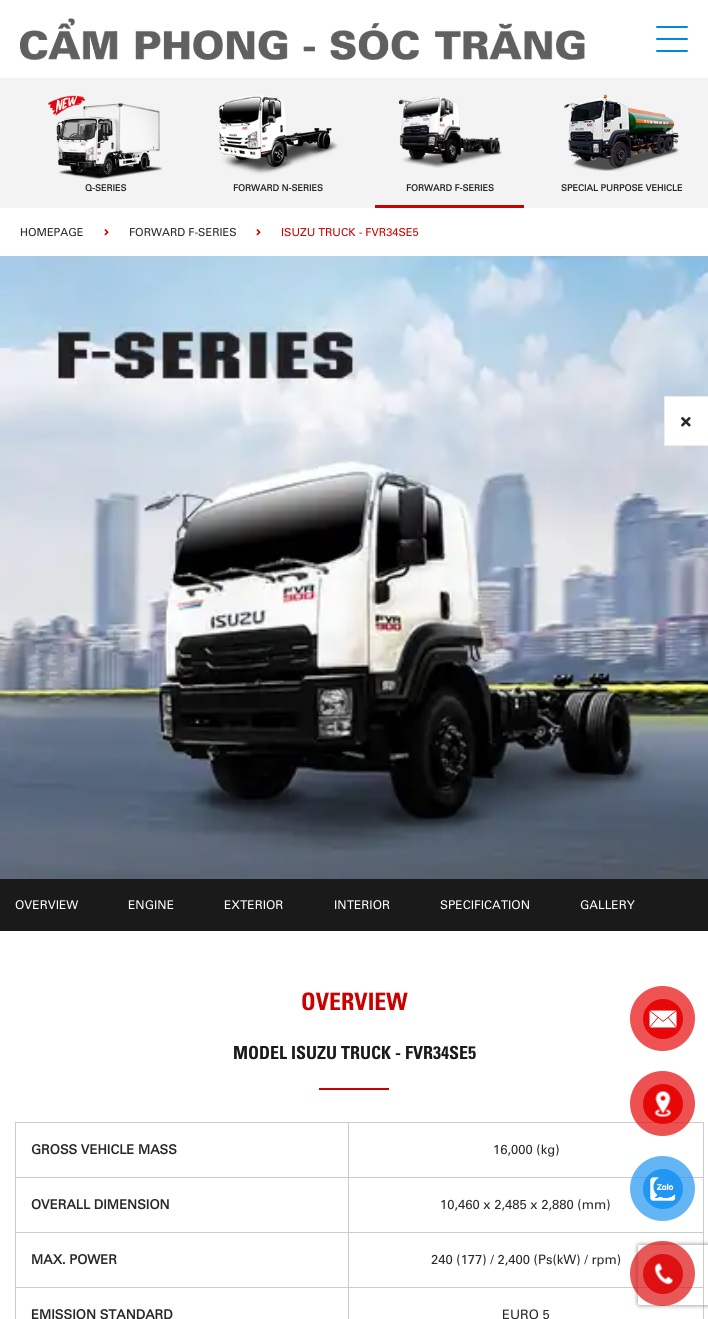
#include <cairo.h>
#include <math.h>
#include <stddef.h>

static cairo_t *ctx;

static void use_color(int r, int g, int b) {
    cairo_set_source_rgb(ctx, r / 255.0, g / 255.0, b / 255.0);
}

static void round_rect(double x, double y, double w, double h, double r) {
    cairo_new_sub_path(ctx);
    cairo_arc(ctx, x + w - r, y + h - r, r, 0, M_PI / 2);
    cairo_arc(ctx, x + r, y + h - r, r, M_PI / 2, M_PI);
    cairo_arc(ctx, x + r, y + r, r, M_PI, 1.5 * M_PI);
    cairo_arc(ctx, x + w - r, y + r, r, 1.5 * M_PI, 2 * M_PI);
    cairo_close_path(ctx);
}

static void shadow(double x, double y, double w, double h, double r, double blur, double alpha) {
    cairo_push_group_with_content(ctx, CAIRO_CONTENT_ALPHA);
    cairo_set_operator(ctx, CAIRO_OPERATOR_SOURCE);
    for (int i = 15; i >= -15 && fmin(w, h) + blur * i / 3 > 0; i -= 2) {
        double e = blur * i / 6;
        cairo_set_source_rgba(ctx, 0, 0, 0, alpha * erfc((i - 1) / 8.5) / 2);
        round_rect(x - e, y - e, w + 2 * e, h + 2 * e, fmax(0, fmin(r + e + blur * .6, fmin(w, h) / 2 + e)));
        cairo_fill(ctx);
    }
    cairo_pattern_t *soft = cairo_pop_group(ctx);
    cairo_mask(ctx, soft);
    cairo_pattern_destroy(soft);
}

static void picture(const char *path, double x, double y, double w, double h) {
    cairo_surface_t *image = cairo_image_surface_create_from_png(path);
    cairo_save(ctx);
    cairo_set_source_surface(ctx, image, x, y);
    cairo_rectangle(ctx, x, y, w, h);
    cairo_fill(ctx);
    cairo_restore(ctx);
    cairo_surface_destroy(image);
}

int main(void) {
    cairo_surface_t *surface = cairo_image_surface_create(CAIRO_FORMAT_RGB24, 708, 1319);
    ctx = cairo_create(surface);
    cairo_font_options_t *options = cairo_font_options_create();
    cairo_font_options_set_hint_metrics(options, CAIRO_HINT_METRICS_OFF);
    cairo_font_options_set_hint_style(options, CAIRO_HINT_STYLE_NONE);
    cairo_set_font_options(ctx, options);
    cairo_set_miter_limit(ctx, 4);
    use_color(255, 255, 255);
    cairo_paint(ctx);
    picture("img1.png", 20, 18, 565, 42);
    use_color(0, 138, 213);
    round_rect(656, 26, 32, 2, 1);
    cairo_fill(ctx);
    round_rect(656, 38, 32, 2, 1);
    cairo_fill(ctx);
    round_rect(656, 50, 32, 2, 1);
    cairo_fill(ctx);
    use_color(243, 243, 244);
    cairo_rectangle(ctx, 0, 78, 708, 130);
    cairo_fill(ctx);
    picture("img2.png", 48, 95, 115, 85);
    cairo_select_font_face(ctx, "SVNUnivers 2", CAIRO_FONT_SLANT_NORMAL, CAIRO_FONT_WEIGHT_BOLD);
    cairo_set_font_size(ctx, 9);
    use_color(40, 40, 39);
    cairo_move_to(ctx, 85, 191);
    cairo_show_text(ctx, "Q-SERIES");
    picture("img3.png", 218, 95, 120, 80);
    cairo_move_to(ctx, 233, 191);
    cairo_show_text(ctx, "FORWARD N-SERIES");
    picture("img4.png", 399, 96, 103, 72);
    cairo_move_to(ctx, 406, 191);
    cairo_show_text(ctx, "FORWARD F-SERIES");
    use_color(200, 2, 0);
    cairo_rectangle(ctx, 375, 205, 149, 3);
    cairo_fill(ctx);
    picture("img5.png", 564, 94, 115, 77);
    use_color(40, 40, 39);
    cairo_move_to(ctx, 561, 191);
    cairo_show_text(ctx, "SPECIAL PURPOSE VEHICLE");
    cairo_select_font_face(ctx, "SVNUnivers", CAIRO_FONT_SLANT_NORMAL, CAIRO_FONT_WEIGHT_NORMAL);
    cairo_set_font_size(ctx, 11);
    cairo_move_to(ctx, 20, 236);
    cairo_show_text(ctx, "HOMEPAGE");
    picture("img6.png", 104, 229, 5, 7);
    cairo_move_to(ctx, 129, 236);
    cairo_show_text(ctx, "FORWARD F-SERIES");
    picture("img6.png", 256, 229, 5, 7);
    use_color(200, 2, 0);
    cairo_move_to(ctx, 281, 236);
    cairo_show_text(ctx, "ISUZU TRUCK - FVR34SE5");
    picture("img7.png", 0, 256, 708, 623);
    use_color(255, 255, 255);
    cairo_rectangle(ctx, 664.5, 396.5, 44, 49);
    cairo_fill_preserve(ctx);
    use_color(236, 236, 236);
    cairo_set_line_width(ctx, 1);
    cairo_stroke(ctx);
    picture("img8.png", 681, 417, 10, 10);
    use_color(26, 26, 26);
    cairo_rectangle(ctx, 0, 879, 708, 52);
    cairo_fill(ctx);
    cairo_set_font_size(ctx, 12);
    use_color(255, 255, 255);
    cairo_move_to(ctx, 15, 909);
    cairo_show_text(ctx, "OVERVIEW");
    cairo_move_to(ctx, 128, 909);
    cairo_show_text(ctx, "ENGINE");
    cairo_move_to(ctx, 224, 909);
    cairo_show_text(ctx, "EXTERIOR");
    cairo_move_to(ctx, 334, 909);
    cairo_show_text(ctx, "INTERIOR");
    cairo_move_to(ctx, 440, 909);
    cairo_show_text(ctx, "SPECIFICATION");
    cairo_move_to(ctx, 580, 909);
    cairo_show_text(ctx, "GALLERY");
    cairo_select_font_face(ctx, "SVNUnivers", CAIRO_FONT_SLANT_NORMAL, CAIRO_FONT_WEIGHT_BOLD);
    cairo_set_font_size(ctx, 24);
    use_color(200, 2, 0);
    cairo_move_to(ctx, 301, 1010);
    cairo_show_text(ctx, "OVERVIEW");
    cairo_set_font_size(ctx, 18);
    use_color(26, 26, 26);
    cairo_move_to(ctx, 233, 1059);
    cairo_show_text(ctx, "MODEL ISUZU TRUCK - FVR34SE5");
    use_color(200, 2, 0);
    cairo_rectangle(ctx, 319, 1088, 70, 2);
    cairo_fill(ctx);
    use_color(204, 204, 204);
    cairo_rectangle(ctx, 348, 1122, 356, 1);
    cairo_fill(ctx);
    cairo_rectangle(ctx, 348, 1177, 356, 1);
    cairo_fill(ctx);
    cairo_rectangle(ctx, 348, 1232, 356, 1);
    cairo_fill(ctx);
    cairo_rectangle(ctx, 348, 1287, 356, 1);
    cairo_fill(ctx);
    cairo_rectangle(ctx, 348, 1287, 1, 32);
    cairo_fill(ctx);
    cairo_rectangle(ctx, 15, 1287, 334, 1);
    cairo_fill(ctx);
    cairo_rectangle(ctx, 348, 1232, 1, 56);
    cairo_fill(ctx);
    cairo_rectangle(ctx, 15, 1232, 334, 1);
    cairo_fill(ctx);
    cairo_rectangle(ctx, 348, 1177, 1, 56);
    cairo_fill(ctx);
    cairo_rectangle(ctx, 15, 1177, 334, 1);
    cairo_fill(ctx);
    cairo_rectangle(ctx, 348, 1122, 1, 56);
    cairo_fill(ctx);
    cairo_rectangle(ctx, 15, 1122, 334, 1);
    cairo_fill(ctx);
    cairo_rectangle(ctx, 15, 1287, 1, 32);
    cairo_fill(ctx);
    cairo_rectangle(ctx, 15, 1232, 1, 56);
    cairo_fill(ctx);
    cairo_rectangle(ctx, 15, 1177, 1, 56);
    cairo_fill(ctx);
    cairo_rectangle(ctx, 15, 1122, 1, 56);
    cairo_fill(ctx);
    cairo_select_font_face(ctx, "SVNUnivers 2", CAIRO_FONT_SLANT_NORMAL, CAIRO_FONT_WEIGHT_BOLD);
    cairo_set_font_size(ctx, 13);
    use_color(40, 40, 39);
    cairo_move_to(ctx, 31, 1154);
    cairo_show_text(ctx, "GROSS VEHICLE MASS");
    use_color(204, 204, 204);
    cairo_rectangle(ctx, 703, 1287, 1, 32);
    cairo_fill(ctx);
    cairo_rectangle(ctx, 703, 1232, 1, 56);
    cairo_fill(ctx);
    cairo_rectangle(ctx, 703, 1177, 1, 56);
    cairo_fill(ctx);
    cairo_rectangle(ctx, 703, 1122, 1, 56);
    cairo_fill(ctx);
    cairo_select_font_face(ctx, "SVNUnivers", CAIRO_FONT_SLANT_NORMAL, CAIRO_FONT_WEIGHT_NORMAL);
    use_color(40, 40, 39);
    cairo_move_to(ctx, 493, 1154);
    cairo_show_text(ctx, "16,000 (kg)");
    cairo_select_font_face(ctx, "SVNUnivers 2", CAIRO_FONT_SLANT_NORMAL, CAIRO_FONT_WEIGHT_BOLD);
    cairo_move_to(ctx, 31, 1209);
    cairo_show_text(ctx, "OVERALL DIMENSION");
    cairo_select_font_face(ctx, "SVNUnivers", CAIRO_FONT_SLANT_NORMAL, CAIRO_FONT_WEIGHT_NORMAL);
    cairo_move_to(ctx, 440, 1209);
    cairo_show_text(ctx, "10,460 x 2,485 x 2,880 (mm)");
    cairo_select_font_face(ctx, "SVNUnivers 2", CAIRO_FONT_SLANT_NORMAL, CAIRO_FONT_WEIGHT_BOLD);
    cairo_move_to(ctx, 31, 1264);
    cairo_show_text(ctx, "MAX. POWER");
    cairo_select_font_face(ctx, "SVNUnivers", CAIRO_FONT_SLANT_NORMAL, CAIRO_FONT_WEIGHT_NORMAL);
    cairo_move_to(ctx, 431, 1264);
    cairo_show_text(ctx, "240 (177) / 2,400 (Ps(kW) / rpm)");
    cairo_select_font_face(ctx, "SVNUnivers 2", CAIRO_FONT_SLANT_NORMAL, CAIRO_FONT_WEIGHT_BOLD);
    cairo_move_to(ctx, 31, 1319);
    cairo_show_text(ctx, "EMISSION STANDARD");
    cairo_select_font_face(ctx, "SVNUnivers", CAIRO_FONT_SLANT_NORMAL, CAIRO_FONT_WEIGHT_NORMAL);
    cairo_move_to(ctx, 502, 1319);
    cairo_show_text(ctx, "EURO 5");
    use_color(238, 82, 82);
    cairo_new_path(ctx);
    cairo_arc(ctx, 662.5, 1018.5, 32.5, 0, 2 * M_PI);
    cairo_fill(ctx);
    use_color(230, 8, 8);
    cairo_arc(ctx, 663, 1019, 20, 0, 2 * M_PI);
    cairo_fill(ctx);
    picture("img9.png", 649, 1010, 28, 18);
    cairo_set_source_rgba(ctx, 0.902, 0.031, 0.031, 0.7);
    cairo_arc(ctx, 662.5, 1103.5, 32.5, 0, 2 * M_PI);
    cairo_fill(ctx);
    use_color(230, 8, 8);
    cairo_arc(ctx, 663, 1104, 20, 0, 2 * M_PI);
    cairo_fill(ctx);
    picture("img10.png", 654, 1091, 18, 26);
    cairo_set_source_rgba(ctx, 0.129, 0.588, 0.953, 0.7);
    cairo_arc(ctx, 662.5, 1188.5, 32.5, 0, 2 * M_PI);
    cairo_fill(ctx);
    use_color(33, 150, 243);
    cairo_arc(ctx, 663, 1189, 20, 0, 2 * M_PI);
    cairo_fill(ctx);
    picture("img11.png", 650, 1177, 26, 24);
    cairo_save(ctx);
    cairo_set_fill_rule(ctx, CAIRO_FILL_RULE_EVEN_ODD);
    cairo_new_path(ctx);
    cairo_move_to(ctx, 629, 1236);
    cairo_line_to(ctx, 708, 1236);
    cairo_line_to(ctx, 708, 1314);
    cairo_line_to(ctx, 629, 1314);
    cairo_close_path(ctx);
    cairo_move_to(ctx, 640, 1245);
    cairo_line_to(ctx, 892, 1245);
    cairo_curve_to(ctx, 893, 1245, 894, 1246, 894, 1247);
    cairo_line_to(ctx, 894, 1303);
    cairo_curve_to(ctx, 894, 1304, 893, 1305, 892, 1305);
    cairo_line_to(ctx, 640, 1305);
    cairo_curve_to(ctx, 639, 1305, 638, 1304, 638, 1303);
    cairo_line_to(ctx, 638, 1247);
    cairo_curve_to(ctx, 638, 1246, 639, 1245, 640, 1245);
    cairo_close_path(ctx);
    cairo_clip(ctx);
    use_color(128, 128, 128);
    shadow(638, 1245, 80, 60, 2, 2.5, 1);
    cairo_restore(ctx);
    cairo_set_source_rgba(ctx, 0.867, 0.067, 0.067, 0.7);
    cairo_arc(ctx, 662.5, 1273.5, 32.5, 0, 2 * M_PI);
    cairo_fill(ctx);
    use_color(221, 17, 17);
    cairo_arc(ctx, 663, 1274, 20, 0, 2 * M_PI);
    cairo_fill(ctx);
    picture("img12.png", 654, 1263, 19, 22);
    cairo_surface_write_to_png(surface, "result.png");
    cairo_font_options_destroy(options);
    cairo_destroy(ctx);
    cairo_surface_destroy(surface);
    return 0;
}
